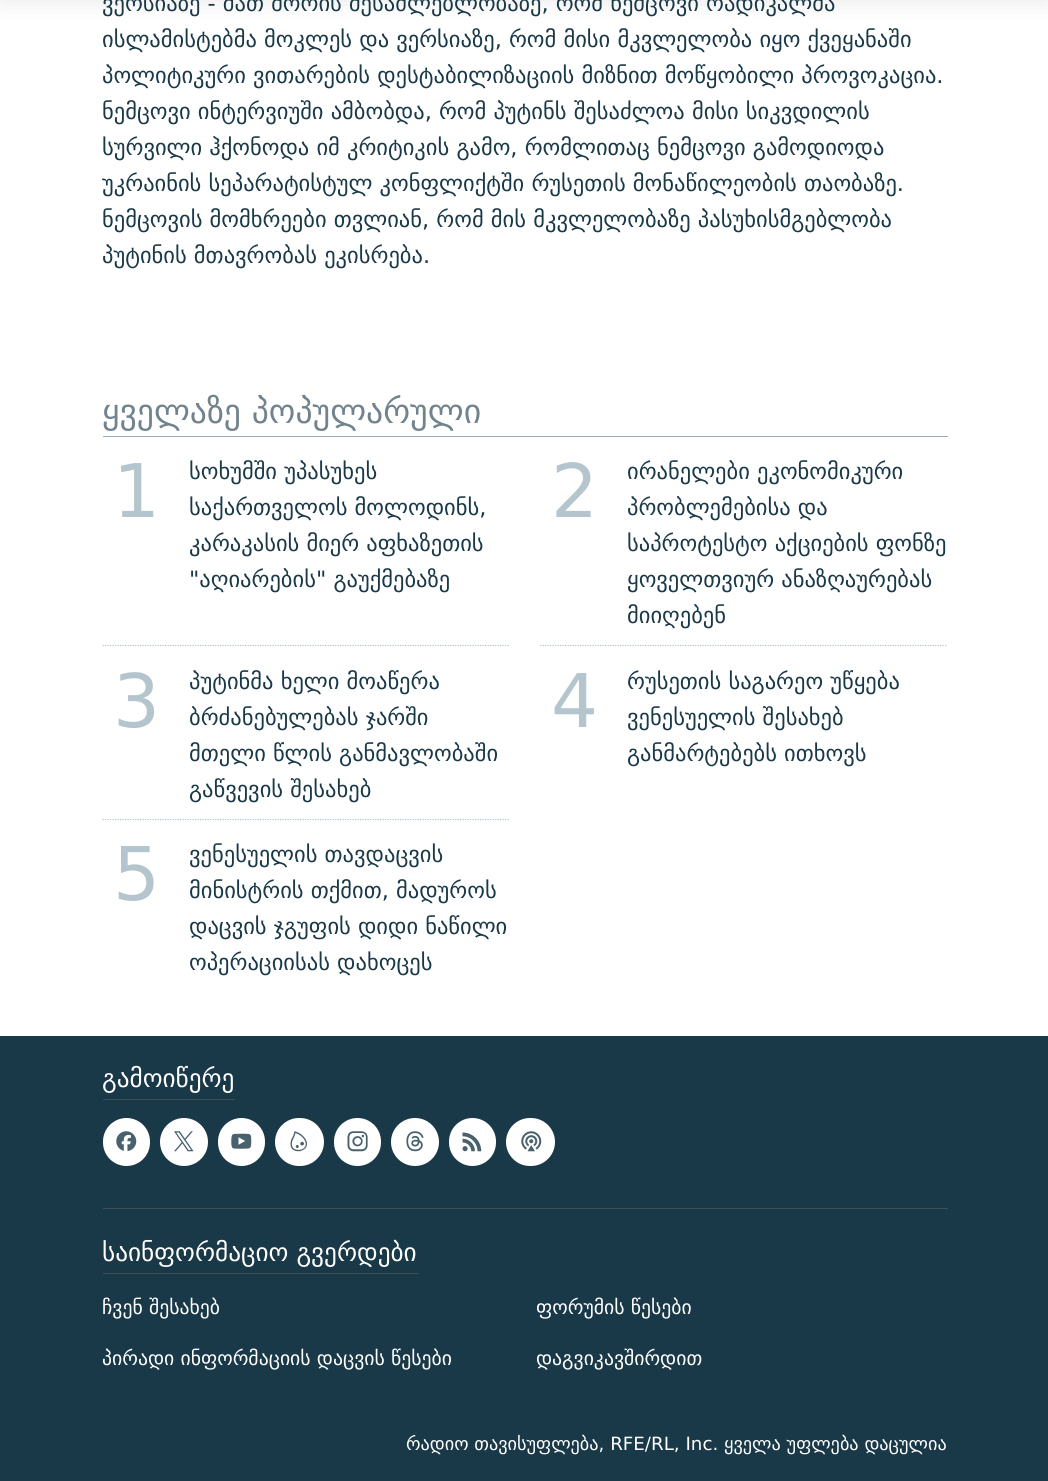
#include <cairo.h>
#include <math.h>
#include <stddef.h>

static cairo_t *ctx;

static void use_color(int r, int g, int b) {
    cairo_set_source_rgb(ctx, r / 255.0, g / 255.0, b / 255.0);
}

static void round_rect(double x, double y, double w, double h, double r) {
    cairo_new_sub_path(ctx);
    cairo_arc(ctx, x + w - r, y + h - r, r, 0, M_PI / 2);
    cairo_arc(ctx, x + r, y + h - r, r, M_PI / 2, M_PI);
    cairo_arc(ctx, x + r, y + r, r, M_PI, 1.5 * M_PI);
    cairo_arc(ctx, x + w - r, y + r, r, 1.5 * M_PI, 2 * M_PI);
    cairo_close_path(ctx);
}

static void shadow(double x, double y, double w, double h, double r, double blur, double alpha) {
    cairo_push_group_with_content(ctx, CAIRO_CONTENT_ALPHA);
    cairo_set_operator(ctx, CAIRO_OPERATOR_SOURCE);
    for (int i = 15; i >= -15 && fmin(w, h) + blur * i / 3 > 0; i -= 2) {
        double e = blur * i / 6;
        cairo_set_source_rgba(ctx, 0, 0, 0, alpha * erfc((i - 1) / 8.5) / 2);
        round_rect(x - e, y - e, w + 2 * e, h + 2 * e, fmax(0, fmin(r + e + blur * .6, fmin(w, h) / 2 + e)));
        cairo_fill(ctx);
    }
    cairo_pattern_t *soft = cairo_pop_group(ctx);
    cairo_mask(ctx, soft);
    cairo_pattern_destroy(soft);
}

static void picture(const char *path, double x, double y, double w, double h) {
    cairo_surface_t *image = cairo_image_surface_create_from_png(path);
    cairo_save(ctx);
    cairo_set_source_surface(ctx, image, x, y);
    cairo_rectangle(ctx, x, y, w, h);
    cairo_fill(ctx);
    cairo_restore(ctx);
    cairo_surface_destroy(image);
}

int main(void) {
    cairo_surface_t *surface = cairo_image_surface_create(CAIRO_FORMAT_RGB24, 1048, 1481);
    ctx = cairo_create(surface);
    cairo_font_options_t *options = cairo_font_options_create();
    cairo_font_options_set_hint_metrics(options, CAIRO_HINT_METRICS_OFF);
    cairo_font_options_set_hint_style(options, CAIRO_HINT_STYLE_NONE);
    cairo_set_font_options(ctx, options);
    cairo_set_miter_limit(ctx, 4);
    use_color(255, 255, 255);
    cairo_paint(ctx);
    use_color(0, 0, 0);
    shadow(0, -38, 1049, 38, 0, 12.5, 0.1);
    cairo_select_font_face(ctx, "DejaVu Sans", CAIRO_FONT_SLANT_NORMAL, CAIRO_FONT_WEIGHT_NORMAL);
    cairo_set_font_size(ctx, 22.5);
    use_color(26, 57, 72);
    cairo_move_to(ctx, 102, 11);
    cairo_show_text(ctx, "ვერსიაზე - მათ შორის შესაძლებლობაზე, რომ ნემცოვი რადიკალმა");
    cairo_move_to(ctx, 102, 47);
    cairo_show_text(ctx, "ისლამისტებმა მოკლეს და ვერსიაზე, რომ მისი მკვლელობა იყო ქვეყანაში");
    cairo_move_to(ctx, 102, 83);
    cairo_show_text(ctx, "პოლიტიკური ვითარების დესტაბილიზაციის მიზნით მოწყობილი პროვოკაცია.");
    cairo_move_to(ctx, 102, 119);
    cairo_show_text(ctx, "ნემცოვი ინტერვიუში ამბობდა, რომ პუტინს შესაძლოა მისი სიკვდილის");
    cairo_move_to(ctx, 102, 155);
    cairo_show_text(ctx, "სურვილი ჰქონოდა იმ კრიტიკის გამო, რომლითაც ნემცოვი გამოდიოდა");
    cairo_move_to(ctx, 102, 191);
    cairo_show_text(ctx, "უკრაინის სეპარატისტულ კონფლიქტში რუსეთის მონაწილეობის თაობაზე.");
    cairo_move_to(ctx, 102, 227);
    cairo_show_text(ctx, "ნემცოვის მომხრეები თვლიან, რომ მის მკვლელობაზე პასუხისმგებლობა");
    cairo_move_to(ctx, 102, 263);
    cairo_show_text(ctx, "პუტინის მთავრობას ეკისრება.");
    use_color(149, 173, 185);
    cairo_rectangle(ctx, 103, 436, 845, 1);
    cairo_fill(ctx);
    cairo_set_font_size(ctx, 33.75);
    use_color(113, 131, 141);
    cairo_move_to(ctx, 102, 423);
    cairo_show_text(ctx, "ყველაზე პოპულარული");
    cairo_set_font_size(ctx, 74);
    use_color(180, 197, 205);
    cairo_move_to(ctx, 113, 517);
    cairo_show_text(ctx, "1");
    cairo_set_font_size(ctx, 22.5);
    use_color(26, 57, 72);
    cairo_move_to(ctx, 189, 479);
    cairo_show_text(ctx, "სოხუმში უპასუხეს");
    cairo_move_to(ctx, 189, 515);
    cairo_show_text(ctx, "საქართველოს მოლოდინს,");
    cairo_move_to(ctx, 189, 551);
    cairo_show_text(ctx, "კარაკასის მიერ აფხაზეთის");
    cairo_move_to(ctx, 189, 587);
    cairo_show_text(ctx, "\"აღიარების\" გაუქმებაზე");
    cairo_set_font_size(ctx, 74);
    use_color(180, 197, 205);
    cairo_move_to(ctx, 551, 517);
    cairo_show_text(ctx, "2");
    cairo_set_font_size(ctx, 22.5);
    use_color(26, 57, 72);
    cairo_move_to(ctx, 627, 479);
    cairo_show_text(ctx, "ირანელები ეკონომიკური");
    cairo_move_to(ctx, 627, 515);
    cairo_show_text(ctx, "პრობლემებისა და");
    cairo_move_to(ctx, 627, 551);
    cairo_show_text(ctx, "საპროტესტო აქციების ფონზე");
    cairo_move_to(ctx, 627, 587);
    cairo_show_text(ctx, "ყოველთვიურ ანაზღაურებას");
    cairo_move_to(ctx, 627, 623);
    cairo_show_text(ctx, "მიიღებენ");
    cairo_new_path(ctx);
    cairo_move_to(ctx, 102.5, 645.5);
    cairo_line_to(ctx, 510, 645.5);
    use_color(180, 197, 205);
    cairo_set_line_width(ctx, 1.2);
    cairo_set_dash(ctx, (double[]){1.25, 1.25}, 2, 0);
    cairo_stroke(ctx);
    cairo_set_font_size(ctx, 74);
    cairo_move_to(ctx, 113, 727);
    cairo_show_text(ctx, "3");
    cairo_set_font_size(ctx, 22.5);
    use_color(26, 57, 72);
    cairo_move_to(ctx, 189, 689);
    cairo_show_text(ctx, "პუტინმა ხელი მოაწერა");
    cairo_move_to(ctx, 189, 725);
    cairo_show_text(ctx, "ბრძანებულებას ჯარში");
    cairo_move_to(ctx, 189, 761);
    cairo_show_text(ctx, "მთელი წლის განმავლობაში");
    cairo_move_to(ctx, 189, 797);
    cairo_show_text(ctx, "გაწვევის შესახებ");
    cairo_new_path(ctx);
    cairo_move_to(ctx, 540, 645.5);
    cairo_line_to(ctx, 947.5, 645.5);
    use_color(180, 197, 205);
    cairo_stroke(ctx);
    cairo_set_font_size(ctx, 74);
    cairo_move_to(ctx, 551, 727);
    cairo_show_text(ctx, "4");
    cairo_set_font_size(ctx, 22.5);
    use_color(26, 57, 72);
    cairo_move_to(ctx, 627, 689);
    cairo_show_text(ctx, "რუსეთის საგარეო უწყება");
    cairo_move_to(ctx, 627, 725);
    cairo_show_text(ctx, "ვენესუელის შესახებ");
    cairo_move_to(ctx, 627, 761);
    cairo_show_text(ctx, "განმარტებებს ითხოვს");
    cairo_new_path(ctx);
    cairo_move_to(ctx, 102.5, 819.5);
    cairo_line_to(ctx, 510, 819.5);
    use_color(180, 197, 205);
    cairo_stroke(ctx);
    cairo_set_font_size(ctx, 74);
    cairo_move_to(ctx, 113, 900);
    cairo_show_text(ctx, "5");
    cairo_set_font_size(ctx, 22.5);
    use_color(26, 57, 72);
    cairo_move_to(ctx, 189, 862);
    cairo_show_text(ctx, "ვენესუელის თავდაცვის");
    cairo_move_to(ctx, 189, 898);
    cairo_show_text(ctx, "მინისტრის თქმით, მადუროს");
    cairo_move_to(ctx, 189, 934);
    cairo_show_text(ctx, "დაცვის ჯგუფის დიდი ნაწილი");
    cairo_move_to(ctx, 189, 970);
    cairo_show_text(ctx, "ოპერაციისას დახოცეს");
    cairo_rectangle(ctx, 0, 1036, 1048, 445);
    cairo_fill(ctx);
    use_color(62, 79, 87);
    cairo_rectangle(ctx, 103, 1099, 132, 1);
    cairo_fill(ctx);
    cairo_set_font_size(ctx, 25.25);
    use_color(255, 255, 255);
    cairo_move_to(ctx, 102, 1087);
    cairo_show_text(ctx, "გამოიწერე");
    round_rect(103, 1118, 47, 48, 23.5);
    cairo_fill(ctx);
    picture("img1.png", 116, 1131, 21, 21);
    cairo_arc(ctx, 184, 1142, 24, 0, 2 * M_PI);
    cairo_fill(ctx);
    picture("img2.png", 174, 1131, 20, 21);
    round_rect(218, 1118, 47, 48, 23.5);
    cairo_fill(ctx);
    picture("img3.png", 231, 1133, 21, 16);
    round_rect(275, 1118, 49, 48, 24);
    cairo_fill(ctx);
    picture("img4.png", 290, 1131, 17, 21);
    round_rect(334, 1118, 47, 48, 23.5);
    cairo_fill(ctx);
    picture("img5.png", 347, 1131, 21, 21);
    cairo_arc(ctx, 415, 1142, 24, 0, 2 * M_PI);
    cairo_fill(ctx);
    picture("img6.png", 406, 1131, 18, 21);
    round_rect(449, 1118, 47, 48, 23.5);
    cairo_fill(ctx);
    picture("img7.png", 462, 1132, 20, 20);
    round_rect(506, 1118, 49, 48, 24);
    cairo_fill(ctx);
    picture("img8.png", 521, 1131, 21, 21);
    use_color(62, 79, 87);
    cairo_rectangle(ctx, 103, 1208, 845, 1);
    cairo_fill(ctx);
    cairo_rectangle(ctx, 103, 1273, 315, 1);
    cairo_fill(ctx);
    use_color(255, 255, 255);
    cairo_move_to(ctx, 102, 1261);
    cairo_show_text(ctx, "საინფორმაციო გვერდები");
    cairo_set_font_size(ctx, 19.7);
    cairo_move_to(ctx, 102, 1314);
    cairo_show_text(ctx, "ჩვენ შესახებ");
    cairo_move_to(ctx, 536, 1314);
    cairo_show_text(ctx, "ფორუმის წესები");
    cairo_move_to(ctx, 102, 1365);
    cairo_show_text(ctx, "პირადი ინფორმაციის დაცვის წესები");
    cairo_move_to(ctx, 536, 1365);
    cairo_show_text(ctx, "დაგვიკავშირდით");
    cairo_set_font_size(ctx, 18.25);
    cairo_move_to(ctx, 406, 1450);
    cairo_show_text(ctx, "რადიო თავისუფლება, RFE/RL, Inc. ყველა უფლება დაცულია");
    cairo_surface_write_to_png(surface, "result.png");
    cairo_font_options_destroy(options);
    cairo_destroy(ctx);
    cairo_surface_destroy(surface);
    return 0;
}
